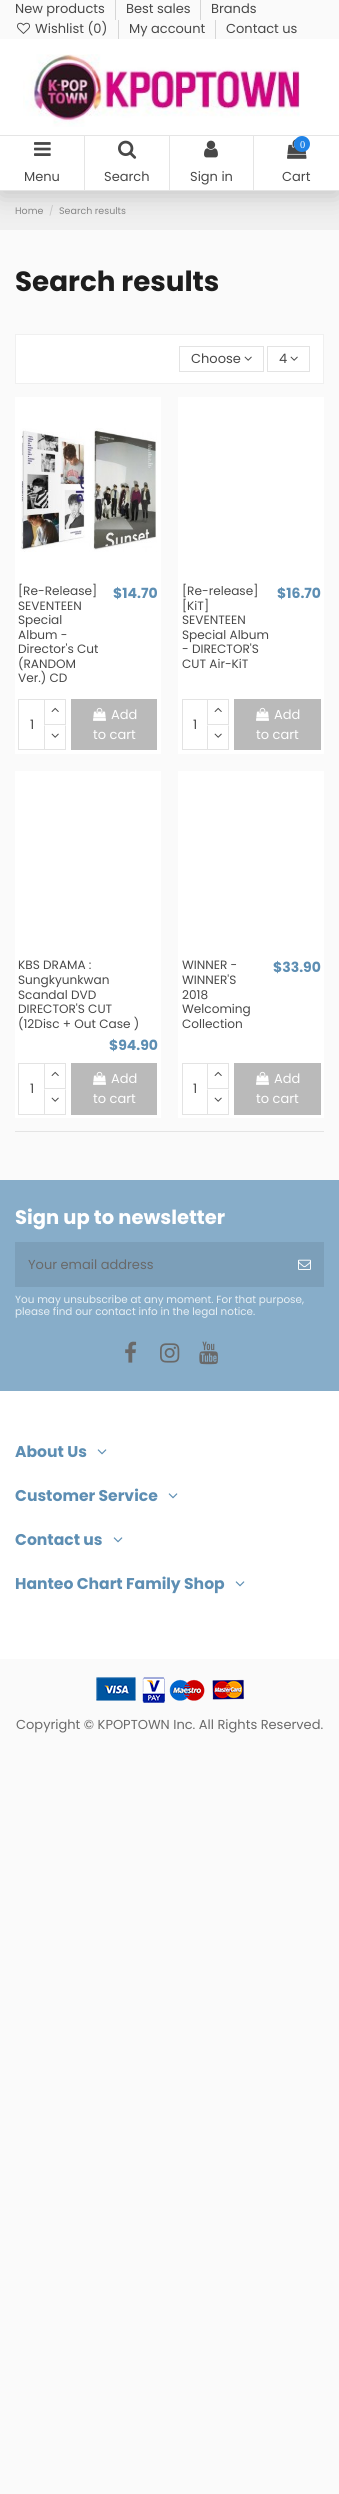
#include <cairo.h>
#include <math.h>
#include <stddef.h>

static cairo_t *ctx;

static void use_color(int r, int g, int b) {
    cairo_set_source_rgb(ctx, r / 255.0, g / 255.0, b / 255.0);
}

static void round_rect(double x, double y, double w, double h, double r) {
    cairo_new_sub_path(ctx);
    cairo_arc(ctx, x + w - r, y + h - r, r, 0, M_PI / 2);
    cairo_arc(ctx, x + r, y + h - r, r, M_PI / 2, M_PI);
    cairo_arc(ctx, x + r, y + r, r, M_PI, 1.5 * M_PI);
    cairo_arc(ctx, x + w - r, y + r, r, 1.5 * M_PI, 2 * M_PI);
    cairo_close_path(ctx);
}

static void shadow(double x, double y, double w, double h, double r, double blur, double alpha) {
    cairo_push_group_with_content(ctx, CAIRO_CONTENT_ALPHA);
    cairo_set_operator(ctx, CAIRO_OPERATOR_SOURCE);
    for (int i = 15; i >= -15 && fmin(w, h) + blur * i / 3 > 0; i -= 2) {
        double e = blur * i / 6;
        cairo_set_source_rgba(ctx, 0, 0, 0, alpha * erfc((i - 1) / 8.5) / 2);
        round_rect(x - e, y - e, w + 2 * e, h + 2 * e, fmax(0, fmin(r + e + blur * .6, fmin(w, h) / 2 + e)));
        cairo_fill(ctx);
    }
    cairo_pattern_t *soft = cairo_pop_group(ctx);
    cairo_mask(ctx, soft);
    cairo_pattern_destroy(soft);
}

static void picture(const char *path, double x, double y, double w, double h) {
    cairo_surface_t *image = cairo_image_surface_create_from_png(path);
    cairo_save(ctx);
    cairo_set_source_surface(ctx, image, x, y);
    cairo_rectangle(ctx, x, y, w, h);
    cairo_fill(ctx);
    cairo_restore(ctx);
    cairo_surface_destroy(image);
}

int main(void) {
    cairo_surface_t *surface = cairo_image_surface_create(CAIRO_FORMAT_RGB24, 339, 2494);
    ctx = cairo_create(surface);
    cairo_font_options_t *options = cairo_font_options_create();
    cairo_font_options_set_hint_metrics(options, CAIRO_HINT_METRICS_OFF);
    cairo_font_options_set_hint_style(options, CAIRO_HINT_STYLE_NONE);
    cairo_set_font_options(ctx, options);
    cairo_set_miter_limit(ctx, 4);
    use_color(250, 250, 250);
    cairo_paint(ctx);
    use_color(240, 240, 240);
    cairo_rectangle(ctx, 0, 191, 339, 39);
    cairo_fill(ctx);
    use_color(0, 0, 0);
    shadow(0, 5, 339, 191, 0, 12.5, 0.18);
    use_color(255, 255, 255);
    cairo_rectangle(ctx, 0, 39, 339, 152);
    cairo_fill(ctx);
    use_color(250, 250, 250);
    cairo_rectangle(ctx, 0, 0, 339, 39);
    cairo_fill(ctx);
    cairo_select_font_face(ctx, "Poppins", CAIRO_FONT_SLANT_NORMAL, CAIRO_FONT_WEIGHT_NORMAL);
    cairo_set_font_size(ctx, 13);
    use_color(72, 72, 72);
    cairo_move_to(ctx, 15, 13);
    cairo_show_text(ctx, "New products");
    use_color(214, 214, 214);
    cairo_rectangle(ctx, 115, 0, 1, 20);
    cairo_fill(ctx);
    use_color(72, 72, 72);
    cairo_move_to(ctx, 126, 13);
    cairo_show_text(ctx, "Best sales");
    use_color(214, 214, 214);
    cairo_rectangle(ctx, 200, 0, 1, 20);
    cairo_fill(ctx);
    use_color(72, 72, 72);
    cairo_move_to(ctx, 211, 13);
    cairo_show_text(ctx, "Brands");
    picture("img1.png", 17, 22, 13, 12);
    cairo_move_to(ctx, 35, 33);
    cairo_show_text(ctx, "Wishlist (0)");
    use_color(214, 214, 214);
    cairo_rectangle(ctx, 118, 20, 1, 19);
    cairo_fill(ctx);
    use_color(72, 72, 72);
    cairo_move_to(ctx, 129, 33);
    cairo_show_text(ctx, "My account");
    use_color(214, 214, 214);
    cairo_rectangle(ctx, 215, 20, 1, 19);
    cairo_fill(ctx);
    use_color(72, 72, 72);
    cairo_move_to(ctx, 226, 33);
    cairo_show_text(ctx, "Contact us");
    picture("img2.png", 23, 54, 277, 73);
    use_color(229, 229, 229);
    cairo_new_path(ctx);
    cairo_move_to(ctx, 0, 135);
    cairo_line_to(ctx, 85, 135);
    cairo_line_to(ctx, 84, 136);
    cairo_line_to(ctx, 0, 136);
    cairo_close_path(ctx);
    cairo_fill(ctx);
    cairo_set_source_rgba(ctx, 0.082, 0.082, 0.082, 0.11);
    cairo_new_path(ctx);
    cairo_move_to(ctx, 85, 135);
    cairo_line_to(ctx, 85, 191);
    cairo_line_to(ctx, 84, 190);
    cairo_line_to(ctx, 84, 136);
    cairo_close_path(ctx);
    cairo_fill(ctx);
    cairo_new_path(ctx);
    cairo_move_to(ctx, 85, 191);
    cairo_line_to(ctx, 0, 191);
    cairo_line_to(ctx, 0, 190);
    cairo_line_to(ctx, 84, 190);
    cairo_close_path(ctx);
    cairo_fill(ctx);
    picture("img3.png", 34, 142, 17, 14);
    use_color(72, 72, 72);
    cairo_move_to(ctx, 24, 181);
    cairo_show_text(ctx, "Menu");
    use_color(229, 229, 229);
    cairo_new_path(ctx);
    cairo_move_to(ctx, 85, 135);
    cairo_line_to(ctx, 170, 135);
    cairo_line_to(ctx, 169, 136);
    cairo_line_to(ctx, 85, 136);
    cairo_close_path(ctx);
    cairo_fill(ctx);
    cairo_set_source_rgba(ctx, 0.082, 0.082, 0.082, 0.11);
    cairo_new_path(ctx);
    cairo_move_to(ctx, 170, 135);
    cairo_line_to(ctx, 170, 191);
    cairo_line_to(ctx, 169, 190);
    cairo_line_to(ctx, 169, 136);
    cairo_close_path(ctx);
    cairo_fill(ctx);
    cairo_new_path(ctx);
    cairo_move_to(ctx, 170, 191);
    cairo_line_to(ctx, 85, 191);
    cairo_line_to(ctx, 85, 190);
    cairo_line_to(ctx, 169, 190);
    cairo_close_path(ctx);
    cairo_fill(ctx);
    picture("img4.png", 118, 140, 19, 19);
    use_color(72, 72, 72);
    cairo_move_to(ctx, 104, 181);
    cairo_show_text(ctx, "Search");
    use_color(229, 229, 229);
    cairo_new_path(ctx);
    cairo_move_to(ctx, 170, 135);
    cairo_line_to(ctx, 254, 135);
    cairo_line_to(ctx, 253, 136);
    cairo_line_to(ctx, 170, 136);
    cairo_close_path(ctx);
    cairo_fill(ctx);
    cairo_set_source_rgba(ctx, 0.082, 0.082, 0.082, 0.11);
    cairo_new_path(ctx);
    cairo_move_to(ctx, 254, 135);
    cairo_line_to(ctx, 254, 191);
    cairo_line_to(ctx, 253, 190);
    cairo_line_to(ctx, 253, 136);
    cairo_close_path(ctx);
    cairo_fill(ctx);
    cairo_new_path(ctx);
    cairo_move_to(ctx, 254, 191);
    cairo_line_to(ctx, 170, 191);
    cairo_line_to(ctx, 170, 190);
    cairo_line_to(ctx, 253, 190);
    cairo_close_path(ctx);
    cairo_fill(ctx);
    picture("img5.png", 204, 140, 14, 18);
    use_color(72, 72, 72);
    cairo_move_to(ctx, 190, 181);
    cairo_show_text(ctx, "Sign in");
    use_color(229, 229, 229);
    cairo_rectangle(ctx, 254, 135, 85, 1);
    cairo_fill(ctx);
    cairo_rectangle(ctx, 254, 190, 85, 1);
    cairo_fill(ctx);
    picture("img6.png", 287, 139, 20, 20);
    use_color(33, 131, 230);
    cairo_arc(ctx, 302, 144, 8, 0, 2 * M_PI);
    cairo_fill(ctx);
    cairo_select_font_face(ctx, "Liberation Serif", CAIRO_FONT_SLANT_NORMAL, CAIRO_FONT_WEIGHT_NORMAL);
    cairo_set_font_size(ctx, 10.4);
    use_color(255, 255, 255);
    cairo_move_to(ctx, 300, 148);
    cairo_show_text(ctx, "0");
    cairo_select_font_face(ctx, "Poppins", CAIRO_FONT_SLANT_NORMAL, CAIRO_FONT_WEIGHT_NORMAL);
    cairo_set_font_size(ctx, 13);
    use_color(72, 72, 72);
    cairo_move_to(ctx, 282, 181);
    cairo_show_text(ctx, "Cart");
    cairo_set_font_size(ctx, 9.5);
    use_color(133, 133, 133);
    cairo_move_to(ctx, 15, 214);
    cairo_show_text(ctx, "Home");
    use_color(197, 197, 197);
    cairo_move_to(ctx, 49, 214);
    cairo_show_text(ctx, "/");
    use_color(133, 133, 133);
    cairo_move_to(ctx, 59, 214);
    cairo_show_text(ctx, "Search results");
    cairo_select_font_face(ctx, "Poppins", CAIRO_FONT_SLANT_NORMAL, CAIRO_FONT_WEIGHT_BOLD);
    cairo_set_font_size(ctx, 27.75);
    use_color(29, 29, 29);
    cairo_move_to(ctx, 15, 291);
    cairo_show_text(ctx, "Search results");
    use_color(255, 255, 255);
    cairo_rectangle(ctx, 15.5, 334.5, 308, 49);
    cairo_fill_preserve(ctx);
    use_color(240, 240, 240);
    cairo_set_line_width(ctx, 1);
    cairo_stroke(ctx);
    cairo_rectangle(ctx, 179.5, 346.5, 84, 25);
    use_color(227, 227, 227);
    cairo_stroke(ctx);
    cairo_select_font_face(ctx, "Poppins", CAIRO_FONT_SLANT_NORMAL, CAIRO_FONT_WEIGHT_NORMAL);
    cairo_set_font_size(ctx, 13);
    use_color(72, 72, 72);
    cairo_move_to(ctx, 191, 363);
    cairo_show_text(ctx, "Choose");
    picture("img7.png", 244, 356, 8, 5);
    cairo_rectangle(ctx, 267.5, 346.5, 42, 25);
    use_color(227, 227, 227);
    cairo_stroke(ctx);
    use_color(72, 72, 72);
    cairo_move_to(ctx, 279, 363);
    cairo_show_text(ctx, "4");
    picture("img7.png", 290, 356, 8, 5);
    use_color(255, 255, 255);
    cairo_rectangle(ctx, 15, 397, 146, 357);
    cairo_fill(ctx);
    picture("img8.png", 20, 428, 137, 124);
    cairo_set_font_size(ctx, 12.1);
    use_color(72, 72, 72);
    cairo_move_to(ctx, 18, 595);
    cairo_show_text(ctx, "[Re-Release]");
    cairo_move_to(ctx, 18, 610);
    cairo_show_text(ctx, "SEVENTEEN");
    cairo_move_to(ctx, 18, 624);
    cairo_show_text(ctx, "Special");
    cairo_move_to(ctx, 18, 639);
    cairo_show_text(ctx, "Album -");
    cairo_move_to(ctx, 18, 653);
    cairo_show_text(ctx, "Director's Cut");
    cairo_move_to(ctx, 18, 668);
    cairo_show_text(ctx, "(RANDOM");
    cairo_move_to(ctx, 18, 682);
    cairo_show_text(ctx, "Ver.) CD");
    cairo_select_font_face(ctx, "Poppins", CAIRO_FONT_SLANT_NORMAL, CAIRO_FONT_WEIGHT_BOLD);
    cairo_set_font_size(ctx, 14);
    use_color(93, 142, 179);
    cairo_move_to(ctx, 113, 598);
    cairo_show_text(ctx, "$14.70");
    cairo_rectangle(ctx, 18.5, 699.5, 26, 50);
    use_color(227, 227, 227);
    cairo_stroke(ctx);
    cairo_select_font_face(ctx, "Poppins", CAIRO_FONT_SLANT_NORMAL, CAIRO_FONT_WEIGHT_NORMAL);
    cairo_set_font_size(ctx, 13);
    use_color(72, 72, 72);
    cairo_move_to(ctx, 30, 729);
    cairo_show_text(ctx, "1");
    cairo_rectangle(ctx, 44.5, 699.5, 21, 25);
    use_color(227, 227, 227);
    cairo_stroke(ctx);
    picture("img9.png", 51, 707, 8, 5);
    use_color(255, 255, 255);
    cairo_rectangle(ctx, 44, 725, 1, 24);
    cairo_fill(ctx);
    use_color(227, 227, 227);
    cairo_new_path(ctx);
    cairo_move_to(ctx, 66, 725);
    cairo_line_to(ctx, 66, 750);
    cairo_line_to(ctx, 65, 749);
    cairo_line_to(ctx, 65, 726);
    cairo_close_path(ctx);
    cairo_fill(ctx);
    cairo_rectangle(ctx, 44, 749, 22, 1);
    cairo_fill(ctx);
    cairo_new_path(ctx);
    cairo_move_to(ctx, 44, 750);
    cairo_line_to(ctx, 44, 725);
    cairo_line_to(ctx, 45, 726);
    cairo_line_to(ctx, 45, 749);
    cairo_close_path(ctx);
    cairo_fill(ctx);
    picture("img7.png", 51, 733, 8, 5);
    use_color(186, 186, 186);
    cairo_rectangle(ctx, 71, 699, 86, 51);
    cairo_fill(ctx);
    picture("img10.png", 93, 707, 13, 14);
    use_color(255, 255, 255);
    cairo_move_to(ctx, 111, 719);
    cairo_show_text(ctx, "Add");
    cairo_move_to(ctx, 93, 739);
    cairo_show_text(ctx, "to cart");
    cairo_rectangle(ctx, 178, 397, 146, 357);
    cairo_fill(ctx);
    cairo_set_font_size(ctx, 12.1);
    use_color(72, 72, 72);
    cairo_move_to(ctx, 182, 595);
    cairo_show_text(ctx, "[Re-release]");
    cairo_move_to(ctx, 182, 610);
    cairo_show_text(ctx, "[KiT]");
    cairo_move_to(ctx, 182, 624);
    cairo_show_text(ctx, "SEVENTEEN");
    cairo_move_to(ctx, 182, 639);
    cairo_show_text(ctx, "Special Album");
    cairo_move_to(ctx, 182, 653);
    cairo_show_text(ctx, "- DIRECTOR'S");
    cairo_move_to(ctx, 182, 668);
    cairo_show_text(ctx, "CUT Air-KiT");
    cairo_select_font_face(ctx, "Poppins", CAIRO_FONT_SLANT_NORMAL, CAIRO_FONT_WEIGHT_BOLD);
    cairo_set_font_size(ctx, 14);
    use_color(93, 142, 179);
    cairo_move_to(ctx, 277, 598);
    cairo_show_text(ctx, "$16.70");
    cairo_rectangle(ctx, 182.5, 699.5, 25, 50);
    use_color(227, 227, 227);
    cairo_stroke(ctx);
    cairo_select_font_face(ctx, "Poppins", CAIRO_FONT_SLANT_NORMAL, CAIRO_FONT_WEIGHT_NORMAL);
    cairo_set_font_size(ctx, 13);
    use_color(72, 72, 72);
    cairo_move_to(ctx, 193, 729);
    cairo_show_text(ctx, "1");
    cairo_rectangle(ctx, 207.5, 699.5, 21, 25);
    use_color(227, 227, 227);
    cairo_stroke(ctx);
    picture("img9.png", 214, 707, 8, 5);
    use_color(255, 255, 255);
    cairo_rectangle(ctx, 207, 725, 1, 24);
    cairo_fill(ctx);
    use_color(227, 227, 227);
    cairo_new_path(ctx);
    cairo_move_to(ctx, 229, 725);
    cairo_line_to(ctx, 229, 750);
    cairo_line_to(ctx, 228, 749);
    cairo_line_to(ctx, 228, 726);
    cairo_close_path(ctx);
    cairo_fill(ctx);
    cairo_rectangle(ctx, 207, 749, 22, 1);
    cairo_fill(ctx);
    cairo_new_path(ctx);
    cairo_move_to(ctx, 207, 750);
    cairo_line_to(ctx, 207, 725);
    cairo_line_to(ctx, 208, 726);
    cairo_line_to(ctx, 208, 749);
    cairo_close_path(ctx);
    cairo_fill(ctx);
    picture("img7.png", 214, 733, 8, 5);
    use_color(186, 186, 186);
    cairo_rectangle(ctx, 234, 699, 87, 51);
    cairo_fill(ctx);
    picture("img10.png", 256, 707, 13, 14);
    use_color(255, 255, 255);
    cairo_move_to(ctx, 274, 719);
    cairo_show_text(ctx, "Add");
    cairo_move_to(ctx, 256, 739);
    cairo_show_text(ctx, "to cart");
    cairo_rectangle(ctx, 15, 771, 146, 347);
    cairo_fill(ctx);
    cairo_set_font_size(ctx, 12.1);
    use_color(72, 72, 72);
    cairo_move_to(ctx, 18, 969);
    cairo_show_text(ctx, "KBS DRAMA :");
    cairo_move_to(ctx, 18, 984);
    cairo_show_text(ctx, "Sungkyunkwan");
    cairo_move_to(ctx, 18, 999);
    cairo_show_text(ctx, "Scandal DVD");
    cairo_move_to(ctx, 18, 1013);
    cairo_show_text(ctx, "DIRECTOR'S CUT");
    cairo_move_to(ctx, 18, 1028);
    cairo_show_text(ctx, "(12Disc + Out Case )");
    cairo_select_font_face(ctx, "Poppins", CAIRO_FONT_SLANT_NORMAL, CAIRO_FONT_WEIGHT_BOLD);
    cairo_set_font_size(ctx, 14);
    use_color(93, 142, 179);
    cairo_move_to(ctx, 109, 1050);
    cairo_show_text(ctx, "$94.90");
    cairo_rectangle(ctx, 18.5, 1063.5, 26, 51);
    use_color(227, 227, 227);
    cairo_stroke(ctx);
    cairo_select_font_face(ctx, "Poppins", CAIRO_FONT_SLANT_NORMAL, CAIRO_FONT_WEIGHT_NORMAL);
    cairo_set_font_size(ctx, 13);
    use_color(72, 72, 72);
    cairo_move_to(ctx, 30, 1093);
    cairo_show_text(ctx, "1");
    cairo_rectangle(ctx, 44.5, 1063.5, 21, 25);
    use_color(227, 227, 227);
    cairo_stroke(ctx);
    picture("img9.png", 51, 1071, 8, 5);
    use_color(255, 255, 255);
    cairo_rectangle(ctx, 44, 1089, 1, 25);
    cairo_fill(ctx);
    use_color(227, 227, 227);
    cairo_new_path(ctx);
    cairo_move_to(ctx, 66, 1089);
    cairo_line_to(ctx, 66, 1115);
    cairo_line_to(ctx, 65, 1114);
    cairo_line_to(ctx, 65, 1090);
    cairo_close_path(ctx);
    cairo_fill(ctx);
    cairo_rectangle(ctx, 44, 1114, 22, 1);
    cairo_fill(ctx);
    cairo_new_path(ctx);
    cairo_move_to(ctx, 44, 1115);
    cairo_line_to(ctx, 44, 1089);
    cairo_line_to(ctx, 45, 1090);
    cairo_line_to(ctx, 45, 1114);
    cairo_close_path(ctx);
    cairo_fill(ctx);
    picture("img7.png", 51, 1097, 8, 5);
    use_color(186, 186, 186);
    cairo_rectangle(ctx, 71, 1063, 86, 52);
    cairo_fill(ctx);
    picture("img10.png", 93, 1071, 13, 14);
    use_color(255, 255, 255);
    cairo_move_to(ctx, 111, 1083);
    cairo_show_text(ctx, "Add");
    cairo_move_to(ctx, 93, 1103);
    cairo_show_text(ctx, "to cart");
    cairo_rectangle(ctx, 178, 771, 146, 347);
    cairo_fill(ctx);
    cairo_set_font_size(ctx, 12.1);
    use_color(72, 72, 72);
    cairo_move_to(ctx, 182, 969);
    cairo_show_text(ctx, "WINNER -");
    cairo_move_to(ctx, 182, 984);
    cairo_show_text(ctx, "WINNER'S");
    cairo_move_to(ctx, 182, 999);
    cairo_show_text(ctx, "2018");
    cairo_move_to(ctx, 182, 1013);
    cairo_show_text(ctx, "Welcoming");
    cairo_move_to(ctx, 182, 1028);
    cairo_show_text(ctx, "Collection");
    cairo_select_font_face(ctx, "Poppins", CAIRO_FONT_SLANT_NORMAL, CAIRO_FONT_WEIGHT_BOLD);
    cairo_set_font_size(ctx, 14);
    use_color(93, 142, 179);
    cairo_move_to(ctx, 273, 972);
    cairo_show_text(ctx, "$33.90");
    cairo_rectangle(ctx, 182.5, 1063.5, 25, 51);
    use_color(227, 227, 227);
    cairo_stroke(ctx);
    cairo_select_font_face(ctx, "Poppins", CAIRO_FONT_SLANT_NORMAL, CAIRO_FONT_WEIGHT_NORMAL);
    cairo_set_font_size(ctx, 13);
    use_color(72, 72, 72);
    cairo_move_to(ctx, 193, 1093);
    cairo_show_text(ctx, "1");
    cairo_rectangle(ctx, 207.5, 1063.5, 21, 25);
    use_color(227, 227, 227);
    cairo_stroke(ctx);
    picture("img9.png", 214, 1071, 8, 5);
    use_color(255, 255, 255);
    cairo_rectangle(ctx, 207, 1089, 1, 25);
    cairo_fill(ctx);
    use_color(227, 227, 227);
    cairo_new_path(ctx);
    cairo_move_to(ctx, 229, 1089);
    cairo_line_to(ctx, 229, 1115);
    cairo_line_to(ctx, 228, 1114);
    cairo_line_to(ctx, 228, 1090);
    cairo_close_path(ctx);
    cairo_fill(ctx);
    cairo_rectangle(ctx, 207, 1114, 22, 1);
    cairo_fill(ctx);
    cairo_new_path(ctx);
    cairo_move_to(ctx, 207, 1115);
    cairo_line_to(ctx, 207, 1089);
    cairo_line_to(ctx, 208, 1090);
    cairo_line_to(ctx, 208, 1114);
    cairo_close_path(ctx);
    cairo_fill(ctx);
    picture("img7.png", 214, 1097, 8, 5);
    use_color(186, 186, 186);
    cairo_rectangle(ctx, 234, 1063, 87, 52);
    cairo_fill(ctx);
    picture("img10.png", 256, 1071, 13, 14);
    use_color(255, 255, 255);
    cairo_move_to(ctx, 274, 1083);
    cairo_show_text(ctx, "Add");
    cairo_move_to(ctx, 256, 1103);
    cairo_show_text(ctx, "to cart");
    use_color(228, 228, 228);
    cairo_rectangle(ctx, 15, 1131, 309, 1);
    cairo_fill(ctx);
    use_color(255, 255, 255);
    cairo_rectangle(ctx, 0, 1391, 339, 268);
    cairo_fill(ctx);
    use_color(135, 173, 201);
    cairo_rectangle(ctx, 0, 1180, 339, 211);
    cairo_fill(ctx);
    cairo_select_font_face(ctx, "Poppins", CAIRO_FONT_SLANT_NORMAL, CAIRO_FONT_WEIGHT_BOLD);
    cairo_set_font_size(ctx, 19.5);
    use_color(255, 255, 255);
    cairo_move_to(ctx, 15, 1224);
    cairo_show_text(ctx, "Sign up to newsletter");
    use_color(124, 159, 185);
    cairo_rectangle(ctx, 15, 1242, 309, 45);
    cairo_fill(ctx);
    cairo_select_font_face(ctx, "Poppins", CAIRO_FONT_SLANT_NORMAL, CAIRO_FONT_WEIGHT_NORMAL);
    cairo_set_font_size(ctx, 13);
    use_color(105, 105, 105);
    cairo_move_to(ctx, 28, 1269);
    cairo_show_text(ctx, "Your email address");
    picture("img11.png", 298, 1259, 13, 11);
    cairo_set_font_size(ctx, 10.4);
    use_color(231, 239, 244);
    cairo_move_to(ctx, 15, 1303);
    cairo_show_text(ctx, "You may unsubscribe at any moment. For that purpose,");
    cairo_move_to(ctx, 15, 1315);
    cairo_show_text(ctx, "please find our contact info in the legal notice.");
    picture("img12.png", 125, 1341, 12, 22);
    picture("img13.png", 160, 1343, 20, 20);
    picture("img14.png", 199, 1341, 19, 24);
    cairo_select_font_face(ctx, "Poppins", CAIRO_FONT_SLANT_NORMAL, CAIRO_FONT_WEIGHT_BOLD);
    cairo_set_font_size(ctx, 15.6);
    use_color(93, 142, 179);
    cairo_move_to(ctx, 15, 1457);
    cairo_show_text(ctx, "About Us");
    picture("img15.png", 97, 1449, 10, 6);
    cairo_move_to(ctx, 15, 1501);
    cairo_show_text(ctx, "Customer Service");
    picture("img15.png", 168, 1493, 10, 6);
    cairo_move_to(ctx, 15, 1545);
    cairo_show_text(ctx, "Contact us");
    picture("img15.png", 113, 1537, 10, 6);
    cairo_move_to(ctx, 15, 1589);
    cairo_show_text(ctx, "Hanteo Chart Family Shop");
    picture("img15.png", 235, 1581, 10, 6);
    picture("img16.png", 96, 1677, 148, 26);
    cairo_select_font_face(ctx, "Poppins", CAIRO_FONT_SLANT_NORMAL, CAIRO_FONT_WEIGHT_NORMAL);
    cairo_set_font_size(ctx, 13);
    use_color(105, 105, 105);
    cairo_move_to(ctx, 16, 1729);
    cairo_show_text(ctx, "Copyright © KPOPTOWN Inc. All Rights Reserved.");
    cairo_surface_write_to_png(surface, "result.png");
    cairo_font_options_destroy(options);
    cairo_destroy(ctx);
    cairo_surface_destroy(surface);
    return 0;
}
